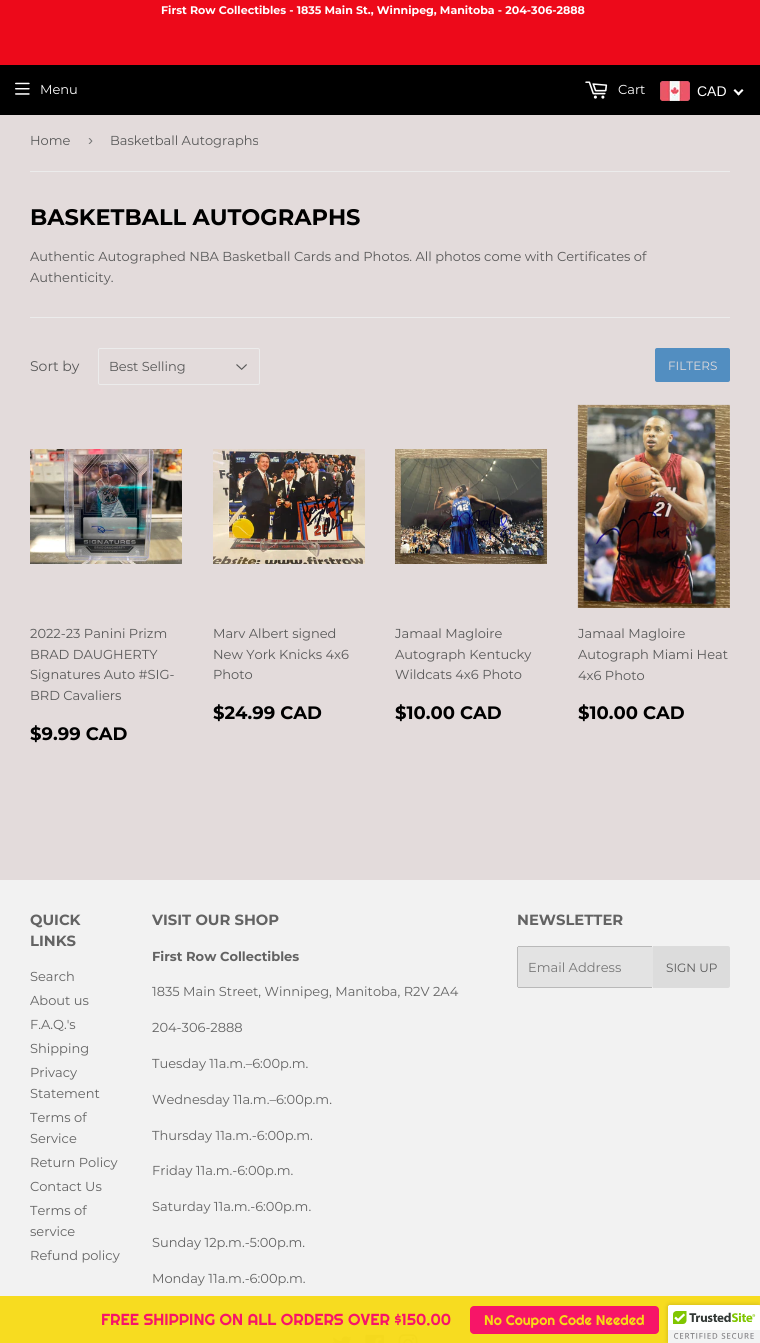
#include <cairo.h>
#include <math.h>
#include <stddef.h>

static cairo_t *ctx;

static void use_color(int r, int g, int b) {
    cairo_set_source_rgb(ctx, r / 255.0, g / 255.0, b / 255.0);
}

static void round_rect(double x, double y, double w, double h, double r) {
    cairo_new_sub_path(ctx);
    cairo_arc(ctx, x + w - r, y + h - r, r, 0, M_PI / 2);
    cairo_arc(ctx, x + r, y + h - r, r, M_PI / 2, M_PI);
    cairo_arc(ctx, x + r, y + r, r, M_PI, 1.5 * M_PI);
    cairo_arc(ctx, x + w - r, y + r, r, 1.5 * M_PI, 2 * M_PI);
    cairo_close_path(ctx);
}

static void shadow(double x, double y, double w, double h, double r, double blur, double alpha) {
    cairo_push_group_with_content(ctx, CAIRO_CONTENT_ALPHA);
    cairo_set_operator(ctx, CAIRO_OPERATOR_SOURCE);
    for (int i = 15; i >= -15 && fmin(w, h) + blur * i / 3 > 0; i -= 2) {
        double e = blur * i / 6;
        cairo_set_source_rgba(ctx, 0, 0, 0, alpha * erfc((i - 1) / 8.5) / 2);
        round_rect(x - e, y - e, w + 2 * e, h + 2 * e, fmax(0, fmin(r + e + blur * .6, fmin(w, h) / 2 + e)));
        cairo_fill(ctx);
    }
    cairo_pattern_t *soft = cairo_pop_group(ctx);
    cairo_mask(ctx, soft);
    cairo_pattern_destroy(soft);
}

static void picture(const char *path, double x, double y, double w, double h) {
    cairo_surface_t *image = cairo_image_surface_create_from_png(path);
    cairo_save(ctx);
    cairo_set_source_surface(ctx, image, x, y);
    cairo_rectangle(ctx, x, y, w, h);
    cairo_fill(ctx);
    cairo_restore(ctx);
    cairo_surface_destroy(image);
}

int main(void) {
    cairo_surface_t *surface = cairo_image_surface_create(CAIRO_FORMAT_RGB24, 760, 1343);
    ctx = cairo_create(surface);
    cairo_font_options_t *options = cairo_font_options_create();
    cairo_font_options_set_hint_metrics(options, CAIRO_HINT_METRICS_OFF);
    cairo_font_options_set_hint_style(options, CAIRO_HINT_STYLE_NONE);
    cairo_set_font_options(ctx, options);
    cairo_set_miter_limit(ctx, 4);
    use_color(227, 219, 219);
    cairo_paint(ctx);
    use_color(237, 9, 26);
    cairo_rectangle(ctx, 0, 0, 760, 65);
    cairo_fill(ctx);
    cairo_select_font_face(ctx, "Montserrat", CAIRO_FONT_SLANT_NORMAL, CAIRO_FONT_WEIGHT_BOLD);
    cairo_set_font_size(ctx, 11.05);
    use_color(255, 255, 255);
    cairo_move_to(ctx, 161, 14);
    cairo_show_text(ctx, "First Row Collectibles - 1835 Main St., Winnipeg, Manitoba - 204-306-2888");
    use_color(0, 0, 0);
    cairo_rectangle(ctx, 0, 65, 760, 50);
    cairo_fill(ctx);
    picture("img1.png", 15, 82, 15, 13);
    cairo_select_font_face(ctx, "Montserrat", CAIRO_FONT_SLANT_NORMAL, CAIRO_FONT_WEIGHT_NORMAL);
    cairo_set_font_size(ctx, 13);
    use_color(255, 255, 255);
    cairo_move_to(ctx, 40, 94);
    cairo_show_text(ctx, "Menu");
    picture("img2.png", 585, 81, 23, 18);
    cairo_move_to(ctx, 618, 94);
    cairo_show_text(ctx, "Cart");
    picture("img3.png", 660, 81, 30, 20);
    cairo_select_font_face(ctx, "Liberation Sans", CAIRO_FONT_SLANT_NORMAL, CAIRO_FONT_WEIGHT_NORMAL);
    cairo_set_font_size(ctx, 14);
    cairo_move_to(ctx, 697, 96);
    cairo_show_text(ctx, "CAD");
    cairo_new_path(ctx);
    cairo_move_to(ctx, 742, 89);
    cairo_line_to(ctx, 743.5, 90.5);
    cairo_line_to(ctx, 738.5, 95.5);
    cairo_line_to(ctx, 737, 94);
    cairo_close_path(ctx);
    cairo_fill(ctx);
    cairo_new_path(ctx);
    cairo_move_to(ctx, 735, 89);
    cairo_line_to(ctx, 740, 94);
    cairo_line_to(ctx, 738.5, 95.5);
    cairo_line_to(ctx, 733.5, 90.5);
    cairo_close_path(ctx);
    cairo_fill(ctx);
    use_color(236, 236, 236);
    cairo_rectangle(ctx, 30, 171, 700, 1);
    cairo_fill(ctx);
    cairo_select_font_face(ctx, "Montserrat", CAIRO_FONT_SLANT_NORMAL, CAIRO_FONT_WEIGHT_NORMAL);
    cairo_set_font_size(ctx, 13);
    use_color(88, 88, 88);
    cairo_move_to(ctx, 30, 145);
    cairo_show_text(ctx, "Home");
    cairo_select_font_face(ctx, "Liberation Sans", CAIRO_FONT_SLANT_NORMAL, CAIRO_FONT_WEIGHT_NORMAL);
    cairo_set_font_size(ctx, 15);
    use_color(118, 118, 118);
    cairo_move_to(ctx, 88, 145);
    cairo_show_text(ctx, "›");
    cairo_select_font_face(ctx, "Montserrat", CAIRO_FONT_SLANT_NORMAL, CAIRO_FONT_WEIGHT_NORMAL);
    cairo_set_font_size(ctx, 13);
    use_color(88, 88, 88);
    cairo_move_to(ctx, 110, 145);
    cairo_show_text(ctx, "Basketball Autographs");
    cairo_select_font_face(ctx, "Montserrat", CAIRO_FONT_SLANT_NORMAL, CAIRO_FONT_WEIGHT_BOLD);
    cairo_set_font_size(ctx, 22.5);
    use_color(0, 0, 0);
    cairo_move_to(ctx, 30, 225);
    cairo_show_text(ctx, "BASKETBALL AUTOGRAPHS");
    cairo_select_font_face(ctx, "Montserrat", CAIRO_FONT_SLANT_NORMAL, CAIRO_FONT_WEIGHT_NORMAL);
    cairo_set_font_size(ctx, 13);
    use_color(88, 88, 88);
    cairo_move_to(ctx, 30, 261);
    cairo_show_text(ctx, "Authentic Autographed NBA Basketball Cards and Photos. All photos come with Certificates of");
    cairo_move_to(ctx, 30, 282);
    cairo_show_text(ctx, "Authenticity.");
    use_color(236, 236, 236);
    cairo_rectangle(ctx, 30, 317, 700, 1);
    cairo_fill(ctx);
    cairo_set_font_size(ctx, 14);
    use_color(88, 88, 88);
    cairo_move_to(ctx, 30, 371);
    cairo_show_text(ctx, "Sort by");
    picture("img4.png", 236, 364, 11, 6);
    round_rect(98.5, 348.5, 161, 36, 1.5);
    use_color(236, 236, 236);
    cairo_set_line_width(ctx, 1);
    cairo_stroke(ctx);
    cairo_set_font_size(ctx, 13);
    use_color(88, 88, 88);
    cairo_move_to(ctx, 109, 371);
    cairo_show_text(ctx, "Best Selling");
    use_color(82, 142, 193);
    round_rect(655, 348, 75, 34, 2);
    cairo_fill(ctx);
    cairo_set_font_size(ctx, 12);
    use_color(227, 219, 219);
    cairo_move_to(ctx, 668, 370);
    cairo_show_text(ctx, "FILTERS");
    picture("img5.png", 30, 449, 152, 115);
    cairo_set_font_size(ctx, 13);
    use_color(88, 88, 88);
    cairo_move_to(ctx, 30, 638);
    cairo_show_text(ctx, "2022-23 Panini Prizm");
    cairo_move_to(ctx, 30, 659);
    cairo_show_text(ctx, "BRAD DAUGHERTY");
    cairo_move_to(ctx, 30, 679);
    cairo_show_text(ctx, "Signatures Auto #SIG-");
    cairo_move_to(ctx, 30, 700);
    cairo_show_text(ctx, "BRD Cavaliers");
    cairo_select_font_face(ctx, "Montserrat", CAIRO_FONT_SLANT_NORMAL, CAIRO_FONT_WEIGHT_BOLD);
    cairo_set_font_size(ctx, 18);
    use_color(0, 0, 0);
    cairo_move_to(ctx, 30, 740);
    cairo_show_text(ctx, "$9.99 CAD");
    picture("img6.png", 213, 449, 152, 115);
    cairo_select_font_face(ctx, "Montserrat", CAIRO_FONT_SLANT_NORMAL, CAIRO_FONT_WEIGHT_NORMAL);
    cairo_set_font_size(ctx, 13);
    use_color(88, 88, 88);
    cairo_move_to(ctx, 213, 638);
    cairo_show_text(ctx, "Marv Albert signed");
    cairo_move_to(ctx, 213, 659);
    cairo_show_text(ctx, "New York Knicks 4x6");
    cairo_move_to(ctx, 213, 679);
    cairo_show_text(ctx, "Photo");
    cairo_select_font_face(ctx, "Montserrat", CAIRO_FONT_SLANT_NORMAL, CAIRO_FONT_WEIGHT_BOLD);
    cairo_set_font_size(ctx, 18);
    use_color(0, 0, 0);
    cairo_move_to(ctx, 213, 719);
    cairo_show_text(ctx, "$24.99 CAD");
    picture("img7.png", 395, 449, 152, 115);
    cairo_select_font_face(ctx, "Montserrat", CAIRO_FONT_SLANT_NORMAL, CAIRO_FONT_WEIGHT_NORMAL);
    cairo_set_font_size(ctx, 13);
    use_color(88, 88, 88);
    cairo_move_to(ctx, 395, 638);
    cairo_show_text(ctx, "Jamaal Magloire");
    cairo_move_to(ctx, 395, 659);
    cairo_show_text(ctx, "Autograph Kentucky");
    cairo_move_to(ctx, 395, 679);
    cairo_show_text(ctx, "Wildcats 4x6 Photo");
    cairo_select_font_face(ctx, "Montserrat", CAIRO_FONT_SLANT_NORMAL, CAIRO_FONT_WEIGHT_BOLD);
    cairo_set_font_size(ctx, 18);
    use_color(0, 0, 0);
    cairo_move_to(ctx, 395, 719);
    cairo_show_text(ctx, "$10.00 CAD");
    picture("img8.png", 577, 404, 153, 204);
    cairo_select_font_face(ctx, "Montserrat", CAIRO_FONT_SLANT_NORMAL, CAIRO_FONT_WEIGHT_NORMAL);
    cairo_set_font_size(ctx, 13);
    use_color(88, 88, 88);
    cairo_move_to(ctx, 578, 638);
    cairo_show_text(ctx, "Jamaal Magloire");
    cairo_move_to(ctx, 578, 659);
    cairo_show_text(ctx, "Autograph Miami Heat");
    cairo_move_to(ctx, 578, 680);
    cairo_show_text(ctx, "4x6 Photo");
    cairo_select_font_face(ctx, "Montserrat", CAIRO_FONT_SLANT_NORMAL, CAIRO_FONT_WEIGHT_BOLD);
    cairo_set_font_size(ctx, 18);
    use_color(0, 0, 0);
    cairo_move_to(ctx, 578, 719);
    cairo_show_text(ctx, "$10.00 CAD");
    use_color(242, 242, 242);
    cairo_rectangle(ctx, 0, 880, 760, 416);
    cairo_fill(ctx);
    use_color(247, 220, 32);
    cairo_rectangle(ctx, 0, 1296, 760, 47);
    cairo_fill(ctx);
    cairo_set_font_size(ctx, 14.75);
    use_color(99, 99, 99);
    cairo_move_to(ctx, 30, 925);
    cairo_show_text(ctx, "QUICK");
    cairo_move_to(ctx, 30, 946);
    cairo_show_text(ctx, "LINKS");
    cairo_select_font_face(ctx, "Montserrat", CAIRO_FONT_SLANT_NORMAL, CAIRO_FONT_WEIGHT_NORMAL);
    cairo_set_font_size(ctx, 13);
    cairo_move_to(ctx, 30, 981);
    cairo_show_text(ctx, "Search");
    cairo_move_to(ctx, 30, 1005);
    cairo_show_text(ctx, "About us");
    cairo_move_to(ctx, 30, 1029);
    cairo_show_text(ctx, "F.A.Q.'s");
    cairo_move_to(ctx, 30, 1053);
    cairo_show_text(ctx, "Shipping");
    cairo_move_to(ctx, 30, 1077);
    cairo_show_text(ctx, "Privacy");
    cairo_move_to(ctx, 30, 1098);
    cairo_show_text(ctx, "Statement");
    cairo_move_to(ctx, 30, 1122);
    cairo_show_text(ctx, "Terms of");
    cairo_move_to(ctx, 30, 1143);
    cairo_show_text(ctx, "Service");
    cairo_move_to(ctx, 30, 1167);
    cairo_show_text(ctx, "Return Policy");
    cairo_move_to(ctx, 30, 1191);
    cairo_show_text(ctx, "Contact Us");
    cairo_move_to(ctx, 30, 1215);
    cairo_show_text(ctx, "Terms of");
    cairo_move_to(ctx, 30, 1236);
    cairo_show_text(ctx, "service");
    cairo_move_to(ctx, 30, 1260);
    cairo_show_text(ctx, "Refund policy");
    cairo_select_font_face(ctx, "Montserrat", CAIRO_FONT_SLANT_NORMAL, CAIRO_FONT_WEIGHT_BOLD);
    cairo_set_font_size(ctx, 14.75);
    cairo_move_to(ctx, 152, 925);
    cairo_show_text(ctx, "VISIT OUR SHOP");
    cairo_set_font_size(ctx, 13);
    cairo_move_to(ctx, 152, 961);
    cairo_show_text(ctx, "First Row Collectibles");
    cairo_select_font_face(ctx, "Montserrat", CAIRO_FONT_SLANT_NORMAL, CAIRO_FONT_WEIGHT_NORMAL);
    cairo_move_to(ctx, 152, 996);
    cairo_show_text(ctx, "1835 Main Street, Winnipeg, Manitoba, R2V 2A4");
    cairo_move_to(ctx, 152, 1032);
    cairo_show_text(ctx, "204-306-2888");
    cairo_move_to(ctx, 152, 1068);
    cairo_show_text(ctx, "Tuesday 11a.m.–6:00p.m.");
    cairo_move_to(ctx, 152, 1104);
    cairo_show_text(ctx, "Wednesday 11a.m.–6:00p.m.");
    cairo_move_to(ctx, 152, 1140);
    cairo_show_text(ctx, "Thursday 11a.m.-6:00p.m.");
    cairo_move_to(ctx, 152, 1175);
    cairo_show_text(ctx, "Friday 11a.m.-6:00p.m.");
    cairo_move_to(ctx, 152, 1211);
    cairo_show_text(ctx, "Saturday 11a.m.-6:00p.m.");
    cairo_move_to(ctx, 152, 1247);
    cairo_show_text(ctx, "Sunday 12p.m.-5:00p.m.");
    cairo_move_to(ctx, 152, 1283);
    cairo_show_text(ctx, "Monday 11a.m.-6:00p.m.");
    cairo_select_font_face(ctx, "Montserrat", CAIRO_FONT_SLANT_NORMAL, CAIRO_FONT_WEIGHT_BOLD);
    cairo_set_font_size(ctx, 14.75);
    cairo_move_to(ctx, 517, 925);
    cairo_show_text(ctx, "NEWSLETTER");
    use_color(227, 227, 227);
    round_rect(517, 946, 136, 42, 2);
    cairo_fill(ctx);
    use_color(185, 185, 185);
    cairo_rectangle(ctx, 518, 946, 134, 1);
    cairo_fill(ctx);
    cairo_rectangle(ctx, 518, 987, 134, 1);
    cairo_fill(ctx);
    cairo_rectangle(ctx, 517, 947, 1, 40);
    cairo_fill(ctx);
    cairo_select_font_face(ctx, "Montserrat", CAIRO_FONT_SLANT_NORMAL, CAIRO_FONT_WEIGHT_NORMAL);
    cairo_set_font_size(ctx, 13);
    use_color(118, 118, 118);
    cairo_move_to(ctx, 528, 972);
    cairo_show_text(ctx, "Email Address");
    use_color(220, 220, 220);
    cairo_new_path(ctx);
    cairo_move_to(ctx, 653, 946);
    cairo_line_to(ctx, 728, 946);
    cairo_curve_to(ctx, 729, 946, 730, 947, 730, 948);
    cairo_line_to(ctx, 730, 986);
    cairo_curve_to(ctx, 730, 987, 729, 988, 728, 988);
    cairo_line_to(ctx, 653, 988);
    cairo_close_path(ctx);
    cairo_fill(ctx);
    cairo_set_font_size(ctx, 12);
    use_color(88, 88, 88);
    cairo_move_to(ctx, 666, 972);
    cairo_show_text(ctx, "SIGN UP");
    picture("img9.png", 333, 1336, 19, 7);
    picture("img10.png", 365, 1334, 20, 9);
    picture("img11.png", 398, 1334, 20, 9);
    cairo_select_font_face(ctx, "Righteous", CAIRO_FONT_SLANT_NORMAL, CAIRO_FONT_WEIGHT_NORMAL);
    cairo_set_font_size(ctx, 16);
    use_color(247, 21, 104);
    cairo_move_to(ctx, 101, 1325);
    cairo_show_text(ctx, "FREE SHIPPING ON ALL ORDERS OVER $150.00");
    round_rect(470, 1306, 189, 28, 4);
    cairo_fill(ctx);
    cairo_set_font_size(ctx, 14);
    use_color(247, 219, 21);
    cairo_move_to(ctx, 484, 1325);
    cairo_show_text(ctx, "No Coupon Code Needed");
    use_color(0, 0, 0);
    shadow(668, 1305, 92, 38, 2, 2.5, 0.2);
    use_color(255, 255, 255);
    cairo_new_path(ctx);
    cairo_move_to(ctx, 670, 1305);
    cairo_line_to(ctx, 760, 1305);
    cairo_line_to(ctx, 760, 1343);
    cairo_line_to(ctx, 668, 1343);
    cairo_line_to(ctx, 668, 1307);
    cairo_curve_to(ctx, 668, 1306, 669, 1305, 670, 1305);
    cairo_close_path(ctx);
    cairo_fill(ctx);
    picture("img12.png", 668, 1305, 92, 38);
    cairo_surface_write_to_png(surface, "result.png");
    cairo_font_options_destroy(options);
    cairo_destroy(ctx);
    cairo_surface_destroy(surface);
    return 0;
}
